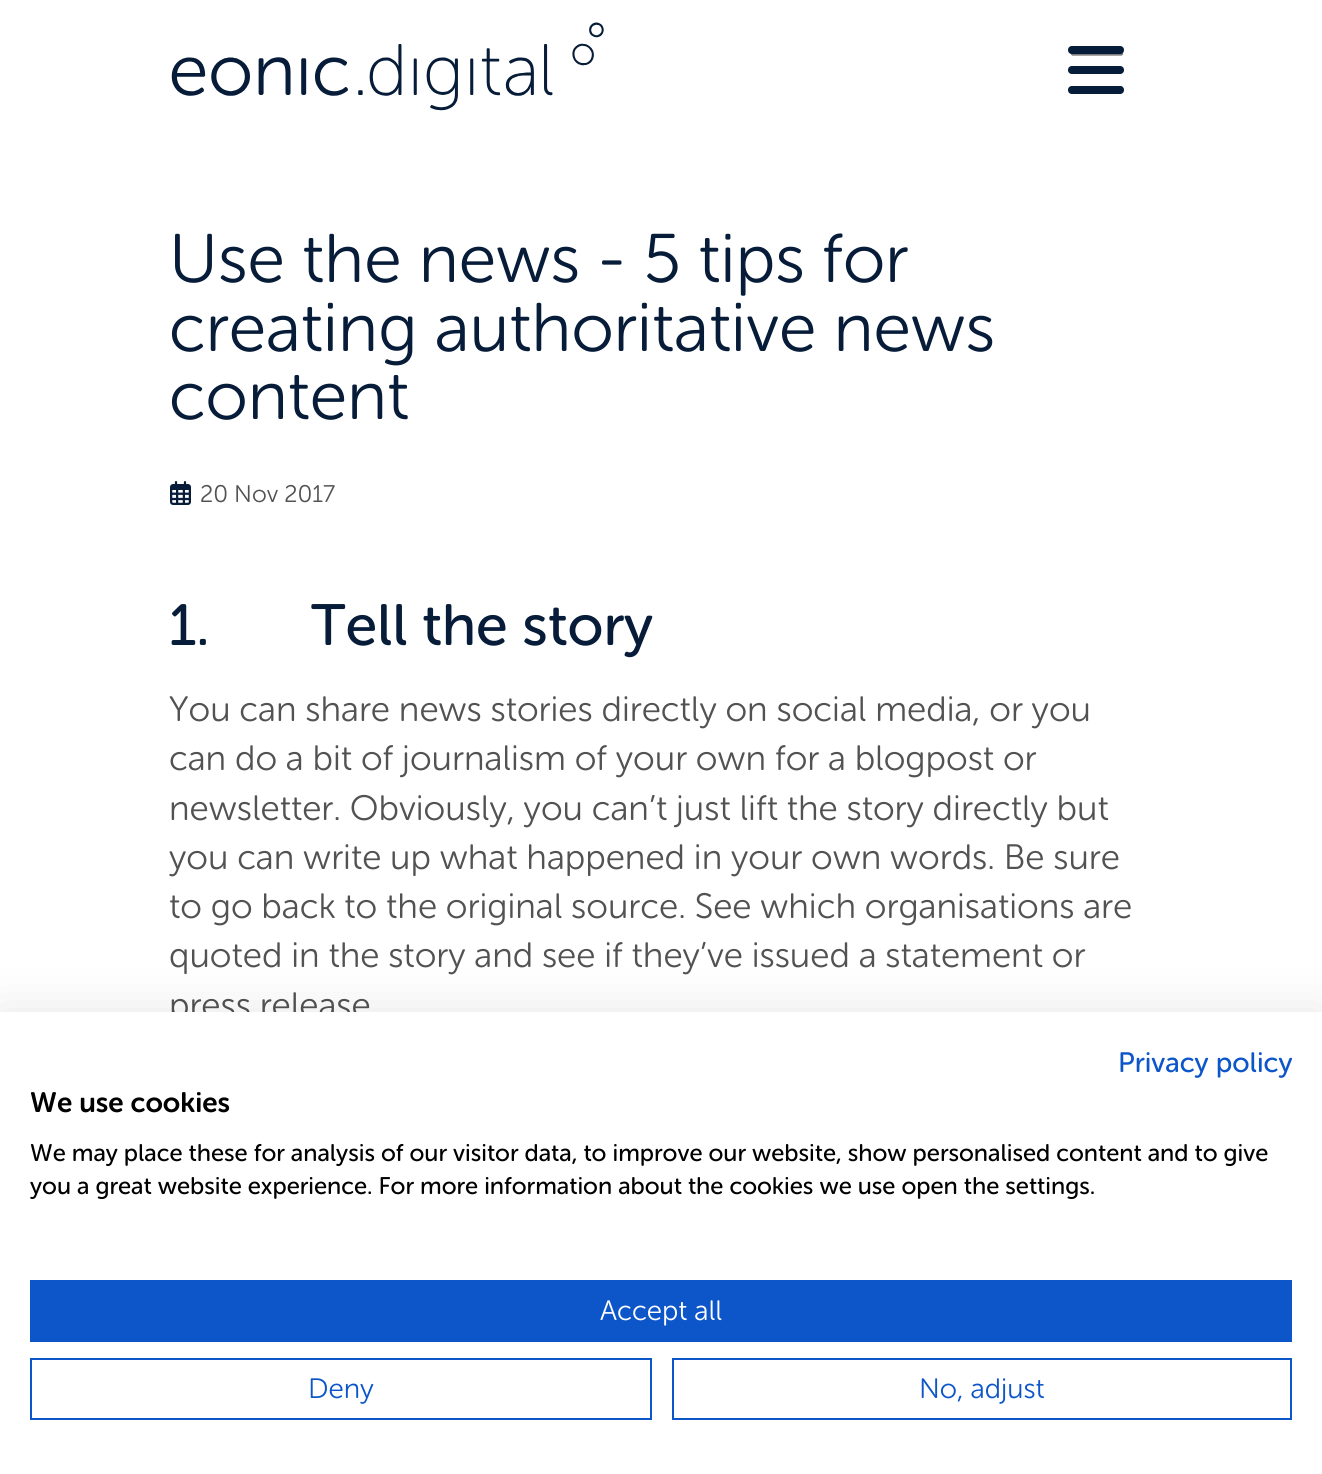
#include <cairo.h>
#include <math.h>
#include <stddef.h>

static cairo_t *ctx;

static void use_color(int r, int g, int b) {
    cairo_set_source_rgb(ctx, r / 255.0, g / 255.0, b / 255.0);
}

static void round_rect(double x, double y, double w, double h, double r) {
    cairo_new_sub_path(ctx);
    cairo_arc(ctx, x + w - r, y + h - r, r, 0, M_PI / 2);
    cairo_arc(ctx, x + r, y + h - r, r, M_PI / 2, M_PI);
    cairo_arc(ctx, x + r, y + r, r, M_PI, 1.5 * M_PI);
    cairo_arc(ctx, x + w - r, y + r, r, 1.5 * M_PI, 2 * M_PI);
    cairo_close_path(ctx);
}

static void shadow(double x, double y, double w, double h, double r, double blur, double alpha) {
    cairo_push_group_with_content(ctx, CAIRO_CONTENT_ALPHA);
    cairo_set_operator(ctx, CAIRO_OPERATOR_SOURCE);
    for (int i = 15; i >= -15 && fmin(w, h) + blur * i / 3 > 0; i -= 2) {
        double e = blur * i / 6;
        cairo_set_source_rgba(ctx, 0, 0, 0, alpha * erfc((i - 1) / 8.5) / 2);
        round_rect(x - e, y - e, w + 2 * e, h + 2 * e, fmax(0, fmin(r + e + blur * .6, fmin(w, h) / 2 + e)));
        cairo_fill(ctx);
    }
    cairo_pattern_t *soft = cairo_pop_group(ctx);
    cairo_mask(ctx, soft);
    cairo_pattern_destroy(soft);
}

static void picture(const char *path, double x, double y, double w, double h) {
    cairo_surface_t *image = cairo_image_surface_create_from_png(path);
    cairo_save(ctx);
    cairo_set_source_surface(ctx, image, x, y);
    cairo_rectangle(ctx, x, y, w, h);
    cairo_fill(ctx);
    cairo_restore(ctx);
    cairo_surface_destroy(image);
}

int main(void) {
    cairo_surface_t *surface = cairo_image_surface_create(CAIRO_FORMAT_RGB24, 1322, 1474);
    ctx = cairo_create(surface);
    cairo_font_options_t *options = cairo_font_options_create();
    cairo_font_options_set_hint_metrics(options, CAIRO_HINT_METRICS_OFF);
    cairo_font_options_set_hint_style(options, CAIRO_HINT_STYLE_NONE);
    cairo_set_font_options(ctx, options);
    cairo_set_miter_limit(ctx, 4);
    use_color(255, 255, 255);
    cairo_paint(ctx);
    picture("img1.png", 171, 22, 433, 89);
    cairo_new_path(ctx);
    cairo_move_to(ctx, 1073, 53.5);
    cairo_line_to(ctx, 1121, 53.5);
    cairo_move_to(ctx, 1073, 71);
    cairo_line_to(ctx, 1121, 71);
    cairo_move_to(ctx, 1073, 88.5);
    cairo_line_to(ctx, 1121, 88.5);
    use_color(125, 125, 125);
    cairo_set_line_width(ctx, 4.4);
    cairo_set_line_cap(ctx, CAIRO_LINE_CAP_ROUND);
    cairo_stroke(ctx);
    picture("img2.png", 1068, 46, 56, 48);
    cairo_select_font_face(ctx, "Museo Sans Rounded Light", CAIRO_FONT_SLANT_NORMAL, CAIRO_FONT_WEIGHT_NORMAL);
    cairo_set_font_size(ctx, 68.6);
    use_color(7, 28, 56);
    cairo_move_to(ctx, 169, 282);
    cairo_show_text(ctx, "Use the news - 5 tips for");
    cairo_move_to(ctx, 169, 351);
    cairo_show_text(ctx, "creating authoritative news");
    cairo_move_to(ctx, 169, 419);
    cairo_show_text(ctx, "content");
    picture("img3.png", 170, 481, 21, 24);
    cairo_set_font_size(ctx, 24);
    use_color(82, 82, 82);
    cairo_move_to(ctx, 200, 502);
    cairo_show_text(ctx, "20 Nov 2017");
    cairo_select_font_face(ctx, "Museo Sans Rounded", CAIRO_FONT_SLANT_NORMAL, CAIRO_FONT_WEIGHT_NORMAL);
    cairo_set_font_size(ctx, 58);
    use_color(7, 28, 56);
    cairo_move_to(ctx, 169, 645);
    cairo_show_text(ctx, "1.       Tell the story");
    cairo_select_font_face(ctx, "Museo Sans Rounded Light", CAIRO_FONT_SLANT_NORMAL, CAIRO_FONT_WEIGHT_NORMAL);
    cairo_set_font_size(ctx, 35.2);
    use_color(82, 82, 82);
    cairo_move_to(ctx, 169, 721);
    cairo_show_text(ctx, "You can share news stories directly on social media, or you");
    cairo_move_to(ctx, 169, 770);
    cairo_show_text(ctx, "can do a bit of journalism of your own for a blogpost or");
    cairo_move_to(ctx, 169, 820);
    cairo_show_text(ctx, "newsletter. Obviously, you can’t just lift the story directly but");
    cairo_move_to(ctx, 169, 869);
    cairo_show_text(ctx, "you can write up what happened in your own words. Be sure");
    cairo_move_to(ctx, 169, 918);
    cairo_show_text(ctx, "to go back to the original source. See which organisations are");
    cairo_move_to(ctx, 169, 967);
    cairo_show_text(ctx, "quoted in the story and see if they’ve issued a statement or");
    cairo_move_to(ctx, 169, 1017);
    cairo_show_text(ctx, "press release");
    use_color(0, 0, 0);
    shadow(0, 1012, 1322, 462, 0, 24, 0.1);
    use_color(255, 255, 255);
    cairo_rectangle(ctx, 0, 1012, 1322, 462);
    cairo_fill(ctx);
    cairo_select_font_face(ctx, "Museo Sans Rounded", CAIRO_FONT_SLANT_NORMAL, CAIRO_FONT_WEIGHT_NORMAL);
    cairo_set_font_size(ctx, 28);
    use_color(13, 86, 201);
    cairo_move_to(ctx, 1118, 1072);
    cairo_show_text(ctx, "Privacy policy");
    cairo_select_font_face(ctx, "Museo Sans Rounded SemiBold", CAIRO_FONT_SLANT_NORMAL, CAIRO_FONT_WEIGHT_NORMAL);
    use_color(0, 0, 0);
    cairo_move_to(ctx, 30, 1112);
    cairo_show_text(ctx, "We use cookies");
    cairo_select_font_face(ctx, "Museo Sans Rounded", CAIRO_FONT_SLANT_NORMAL, CAIRO_FONT_WEIGHT_NORMAL);
    cairo_set_font_size(ctx, 24);
    cairo_move_to(ctx, 30, 1161);
    cairo_show_text(ctx, "We may place these for analysis of our visitor data, to improve our website, show personalised content and to give");
    cairo_move_to(ctx, 30, 1194);
    cairo_show_text(ctx, "you a great website experience. For more information about the cookies we use open the settings.");
    use_color(13, 86, 201);
    cairo_rectangle(ctx, 30, 1280, 1262, 62);
    cairo_fill(ctx);
    cairo_select_font_face(ctx, "Museo Sans Rounded Light", CAIRO_FONT_SLANT_NORMAL, CAIRO_FONT_WEIGHT_NORMAL);
    cairo_set_font_size(ctx, 28);
    use_color(255, 255, 255);
    cairo_move_to(ctx, 600, 1320);
    cairo_show_text(ctx, "Accept all");
    cairo_rectangle(ctx, 31, 1359, 620, 60);
    use_color(13, 86, 201);
    cairo_set_line_width(ctx, 2);
    cairo_set_line_cap(ctx, CAIRO_LINE_CAP_BUTT);
    cairo_stroke(ctx);
    cairo_move_to(ctx, 308, 1398);
    cairo_show_text(ctx, "Deny");
    cairo_rectangle(ctx, 673, 1359, 618, 60);
    cairo_stroke(ctx);
    cairo_move_to(ctx, 919, 1398);
    cairo_show_text(ctx, "No, adjust");
    cairo_surface_write_to_png(surface, "result.png");
    cairo_font_options_destroy(options);
    cairo_destroy(ctx);
    cairo_surface_destroy(surface);
    return 0;
}
